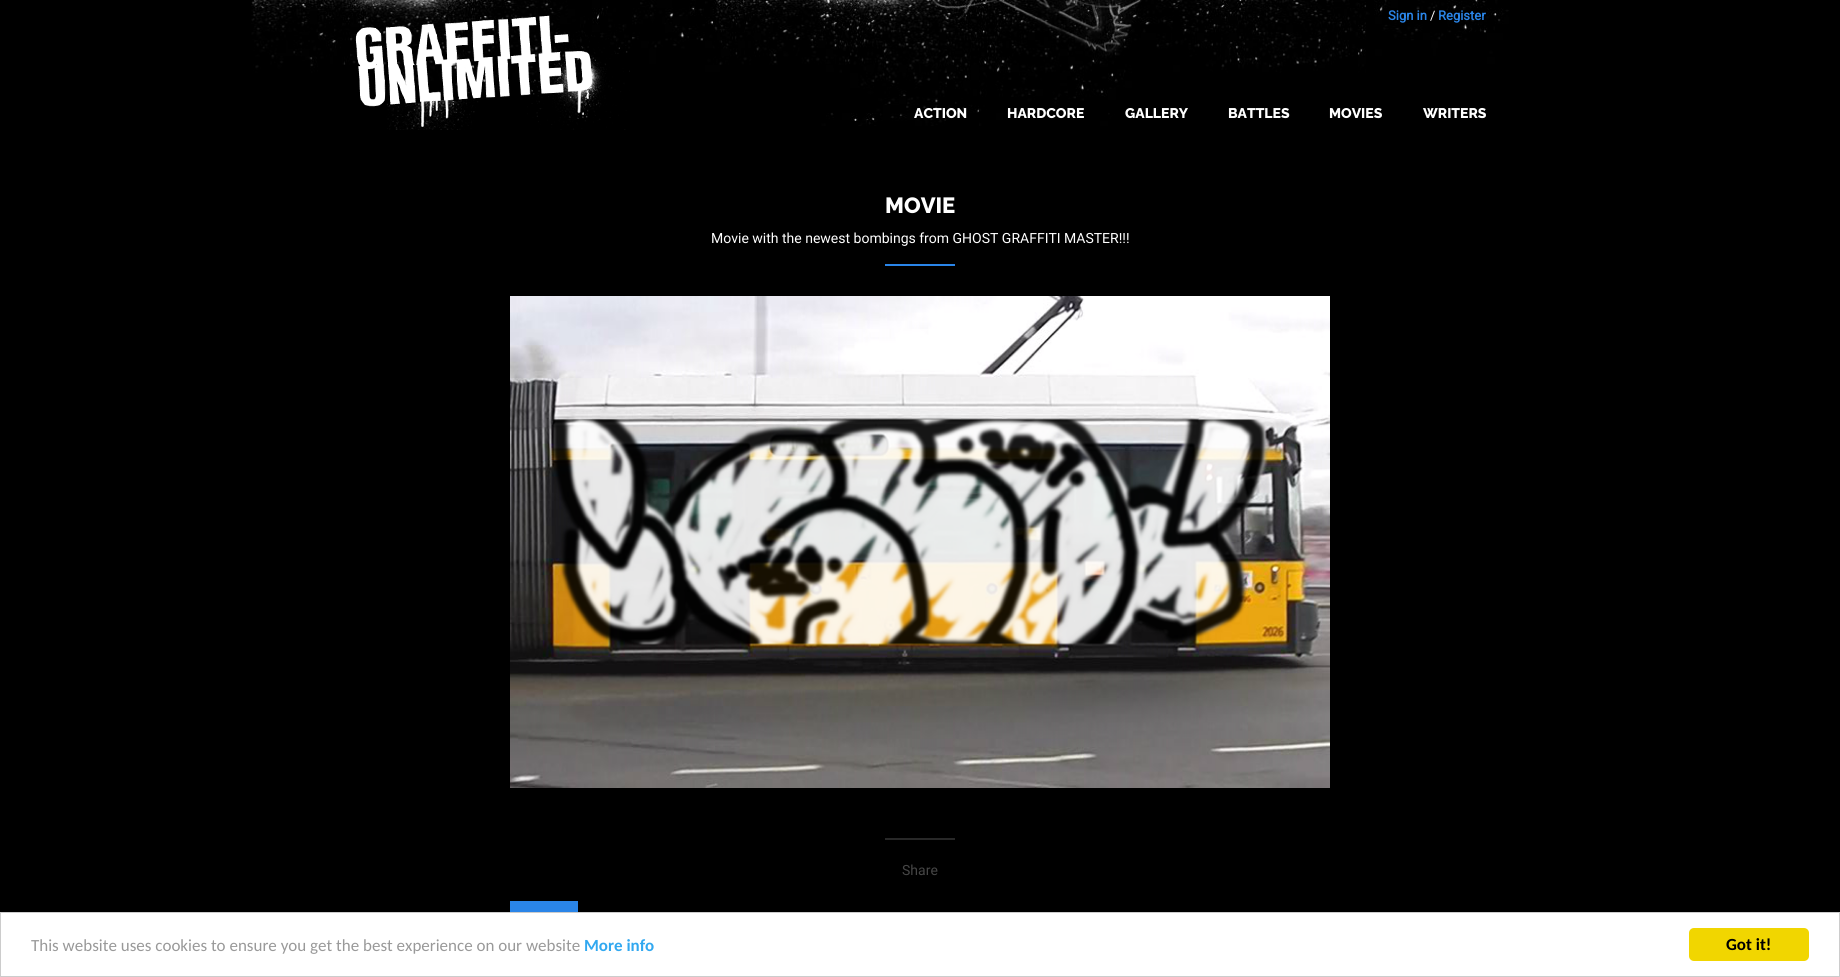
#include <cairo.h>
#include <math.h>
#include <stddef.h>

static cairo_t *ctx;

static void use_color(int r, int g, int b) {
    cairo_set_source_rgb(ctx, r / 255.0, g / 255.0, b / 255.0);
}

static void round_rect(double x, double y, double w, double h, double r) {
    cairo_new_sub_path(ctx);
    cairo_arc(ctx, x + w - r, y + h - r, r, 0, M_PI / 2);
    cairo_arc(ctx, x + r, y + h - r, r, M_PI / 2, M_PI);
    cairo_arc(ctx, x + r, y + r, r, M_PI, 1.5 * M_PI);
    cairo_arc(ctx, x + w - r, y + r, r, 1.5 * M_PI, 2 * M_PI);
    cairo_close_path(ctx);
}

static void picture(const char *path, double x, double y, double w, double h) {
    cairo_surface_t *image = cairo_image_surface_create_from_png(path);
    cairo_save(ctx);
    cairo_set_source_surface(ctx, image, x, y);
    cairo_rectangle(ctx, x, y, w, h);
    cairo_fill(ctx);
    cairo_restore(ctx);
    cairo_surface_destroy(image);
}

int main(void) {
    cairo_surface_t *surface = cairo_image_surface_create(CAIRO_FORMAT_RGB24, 1840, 977);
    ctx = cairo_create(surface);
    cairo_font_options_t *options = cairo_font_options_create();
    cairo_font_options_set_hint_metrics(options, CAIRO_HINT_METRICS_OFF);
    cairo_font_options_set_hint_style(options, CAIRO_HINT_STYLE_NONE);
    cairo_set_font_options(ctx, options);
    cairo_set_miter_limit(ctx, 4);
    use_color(0, 0, 0);
    cairo_paint(ctx);
    picture("img1.png", 251, 0, 1258, 126);
    picture("img2.png", 355, 15, 275, 115);
    cairo_select_font_face(ctx, "Roboto", CAIRO_FONT_SLANT_NORMAL, CAIRO_FONT_WEIGHT_BOLD);
    cairo_set_font_size(ctx, 13);
    use_color(42, 133, 232);
    cairo_move_to(ctx, 1388, 20);
    cairo_show_text(ctx, "Sign in");
    cairo_select_font_face(ctx, "Roboto", CAIRO_FONT_SLANT_NORMAL, CAIRO_FONT_WEIGHT_NORMAL);
    use_color(255, 255, 255);
    cairo_move_to(ctx, 1430, 20);
    cairo_show_text(ctx, "/");
    cairo_select_font_face(ctx, "Roboto", CAIRO_FONT_SLANT_NORMAL, CAIRO_FONT_WEIGHT_BOLD);
    use_color(42, 133, 232);
    cairo_move_to(ctx, 1438, 20);
    cairo_show_text(ctx, "Register");
    cairo_set_source_rgba(ctx, 0, 0, 0, 0.3);
    cairo_rectangle(ctx, 874, 97, 235, 24);
    cairo_fill(ctx);
    cairo_select_font_face(ctx, "Raleway ExtraBold", CAIRO_FONT_SLANT_NORMAL, CAIRO_FONT_WEIGHT_NORMAL);
    cairo_set_font_size(ctx, 14);
    use_color(255, 255, 255);
    cairo_move_to(ctx, 914, 118);
    cairo_show_text(ctx, "ACTION");
    cairo_move_to(ctx, 1007, 118);
    cairo_show_text(ctx, "HARDCORE");
    cairo_move_to(ctx, 1125, 118);
    cairo_show_text(ctx, "GALLERY");
    cairo_move_to(ctx, 1228, 118);
    cairo_show_text(ctx, "BATTLES");
    cairo_move_to(ctx, 1329, 118);
    cairo_show_text(ctx, "MOVIES");
    cairo_move_to(ctx, 1423, 118);
    cairo_show_text(ctx, "WRITERS");
    cairo_set_font_size(ctx, 22);
    cairo_move_to(ctx, 885, 213);
    cairo_show_text(ctx, "MOVIE");
    cairo_select_font_face(ctx, "Roboto", CAIRO_FONT_SLANT_NORMAL, CAIRO_FONT_WEIGHT_NORMAL);
    cairo_set_font_size(ctx, 14);
    cairo_move_to(ctx, 711, 243);
    cairo_show_text(ctx, "Movie with the newest bombings from GHOST GRAFFITI MASTER!!!");
    use_color(42, 133, 232);
    cairo_rectangle(ctx, 885, 264, 70, 2);
    cairo_fill(ctx);
    picture("img3.png", 510, 296, 820, 492);
    use_color(40, 40, 40);
    cairo_rectangle(ctx, 885, 838, 70, 2);
    cairo_fill(ctx);
    use_color(70, 70, 70);
    cairo_move_to(ctx, 902, 875);
    cairo_show_text(ctx, "Share");
    use_color(42, 133, 232);
    cairo_rectangle(ctx, 510, 901, 68, 11);
    cairo_fill(ctx);
    use_color(255, 255, 255);
    cairo_rectangle(ctx, 0.5, 912.5, 1839, 64);
    cairo_fill_preserve(ctx);
    use_color(204, 204, 204);
    cairo_set_line_width(ctx, 1);
    cairo_stroke(ctx);
    cairo_select_font_face(ctx, "Carlito", CAIRO_FONT_SLANT_NORMAL, CAIRO_FONT_WEIGHT_NORMAL);
    cairo_set_font_size(ctx, 17);
    use_color(153, 153, 153);
    cairo_move_to(ctx, 31, 951);
    cairo_show_text(ctx, "This website uses cookies to ensure you get the best experience on our website");
    cairo_select_font_face(ctx, "Carlito", CAIRO_FONT_SLANT_NORMAL, CAIRO_FONT_WEIGHT_BOLD);
    use_color(49, 168, 240);
    cairo_move_to(ctx, 584, 951);
    cairo_show_text(ctx, "More info");
    use_color(241, 214, 0);
    round_rect(1689, 928, 120, 33, 5);
    cairo_fill(ctx);
    use_color(0, 0, 0);
    cairo_move_to(ctx, 1726, 950);
    cairo_show_text(ctx, "Got it!");
    cairo_surface_write_to_png(surface, "result.png");
    cairo_font_options_destroy(options);
    cairo_destroy(ctx);
    cairo_surface_destroy(surface);
    return 0;
}
